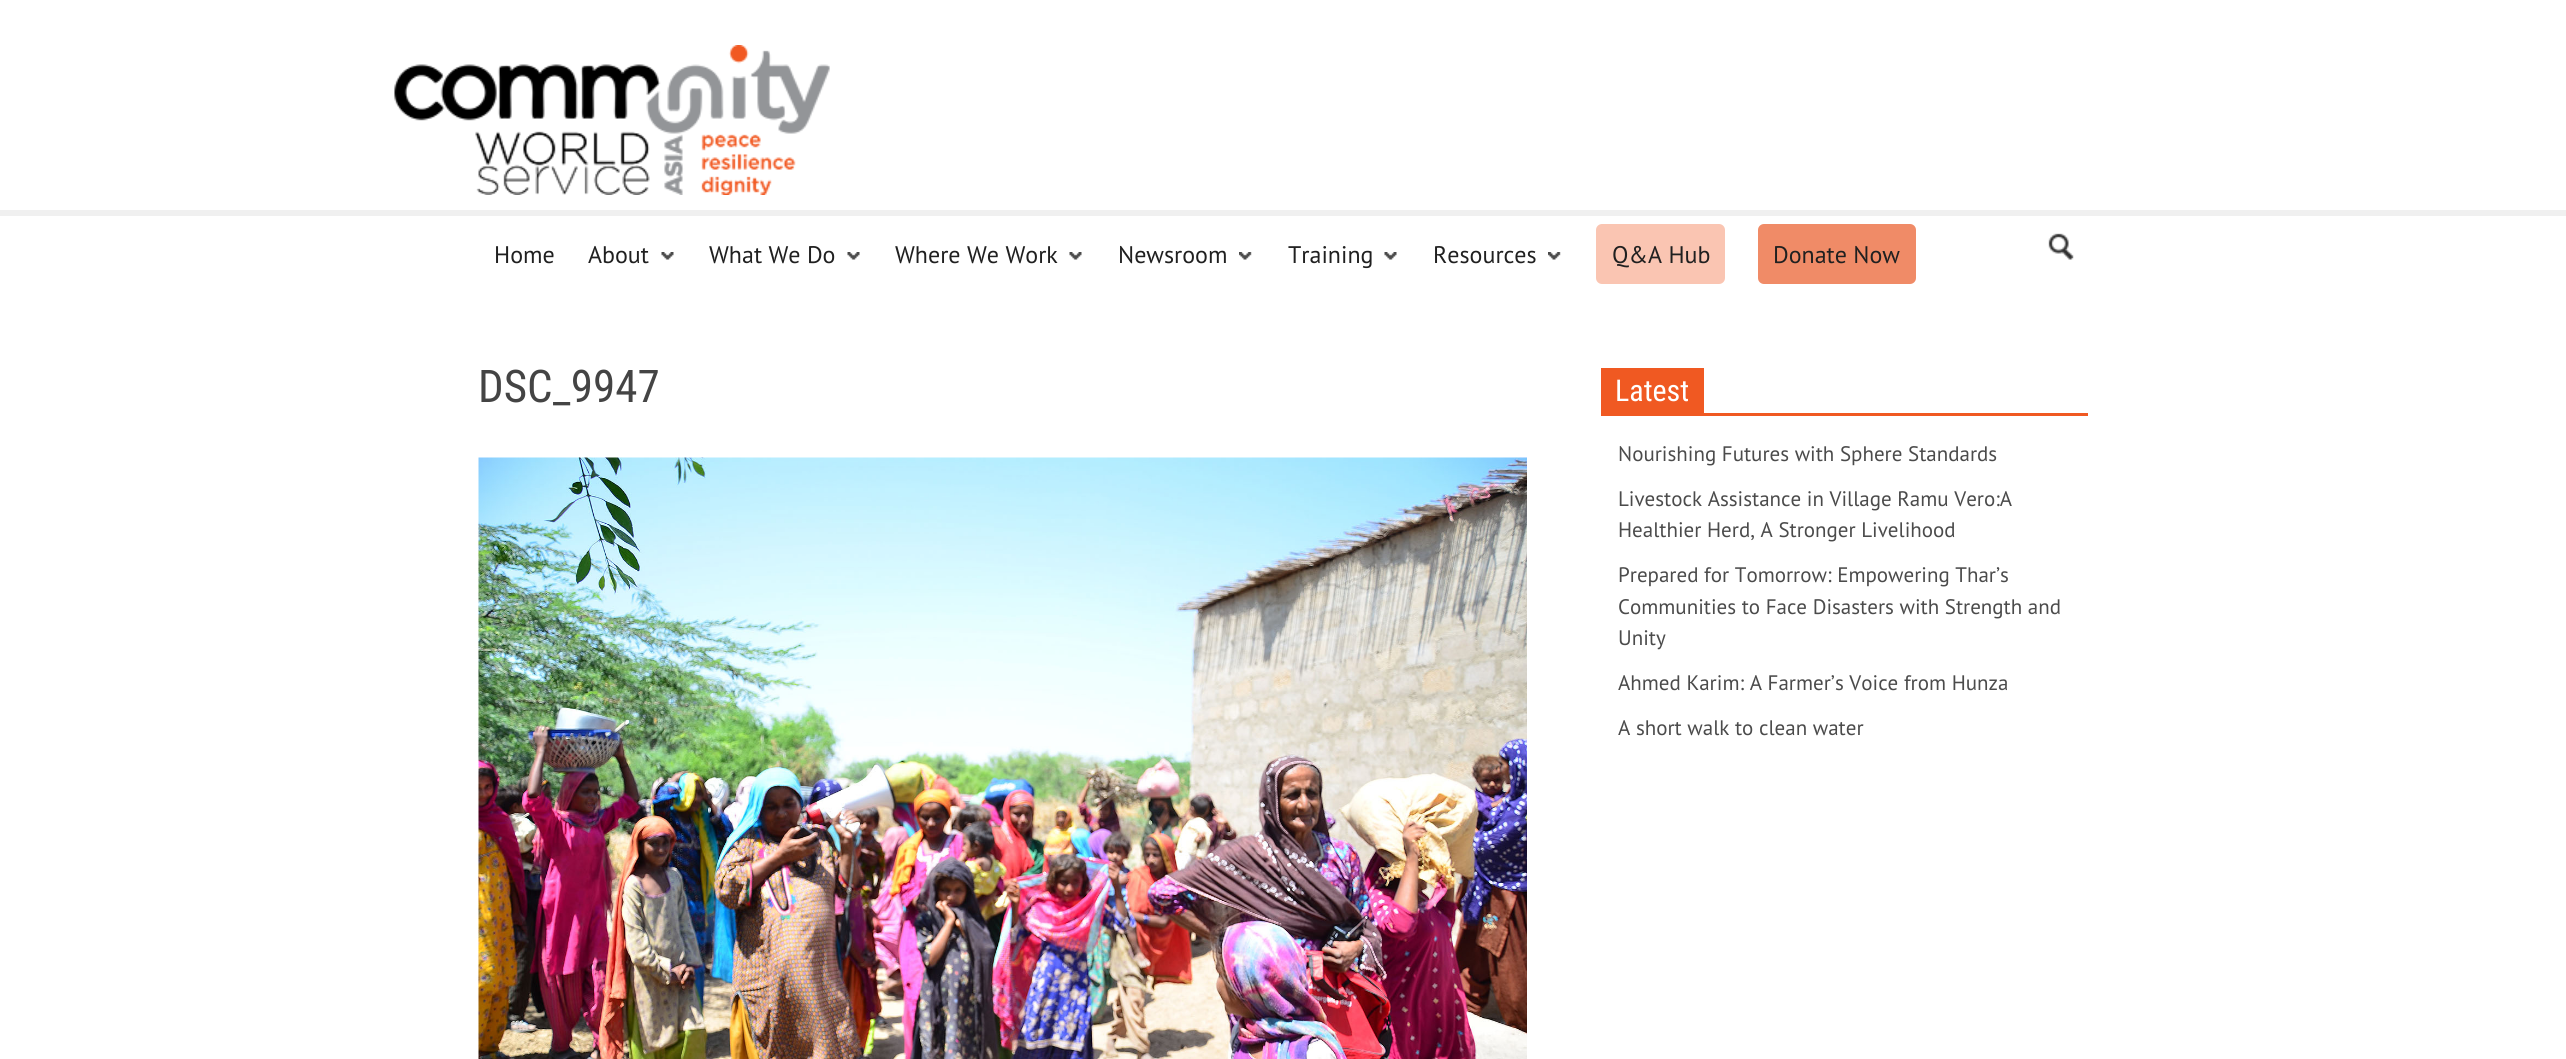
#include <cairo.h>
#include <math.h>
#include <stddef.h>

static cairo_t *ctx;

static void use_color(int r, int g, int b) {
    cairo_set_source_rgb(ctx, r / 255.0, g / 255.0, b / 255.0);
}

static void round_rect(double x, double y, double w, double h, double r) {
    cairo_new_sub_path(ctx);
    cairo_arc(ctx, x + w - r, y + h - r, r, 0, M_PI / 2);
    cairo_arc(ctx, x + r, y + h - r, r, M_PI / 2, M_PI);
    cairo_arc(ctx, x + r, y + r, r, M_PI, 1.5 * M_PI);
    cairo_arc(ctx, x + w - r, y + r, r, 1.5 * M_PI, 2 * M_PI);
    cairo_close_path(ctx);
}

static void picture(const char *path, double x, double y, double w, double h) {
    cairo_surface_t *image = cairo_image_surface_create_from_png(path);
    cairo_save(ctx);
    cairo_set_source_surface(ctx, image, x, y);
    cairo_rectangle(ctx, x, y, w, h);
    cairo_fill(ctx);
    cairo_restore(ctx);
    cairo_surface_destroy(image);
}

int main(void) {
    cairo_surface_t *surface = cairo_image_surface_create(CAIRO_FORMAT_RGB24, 2566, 1059);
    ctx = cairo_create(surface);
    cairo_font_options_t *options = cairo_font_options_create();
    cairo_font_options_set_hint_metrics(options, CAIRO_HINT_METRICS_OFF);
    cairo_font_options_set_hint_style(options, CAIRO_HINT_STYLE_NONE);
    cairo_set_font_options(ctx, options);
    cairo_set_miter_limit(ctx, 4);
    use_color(255, 255, 255);
    cairo_paint(ctx);
    picture("img1.png", 394, 45, 436, 150);
    use_color(240, 240, 240);
    cairo_rectangle(ctx, 0, 210, 2566, 6);
    cairo_fill(ctx);
    cairo_select_font_face(ctx, "PT Sans", CAIRO_FONT_SLANT_NORMAL, CAIRO_FONT_WEIGHT_NORMAL);
    cairo_set_font_size(ctx, 24);
    use_color(32, 32, 32);
    cairo_move_to(ctx, 494, 263);
    cairo_show_text(ctx, "Home");
    cairo_move_to(ctx, 588, 263);
    cairo_show_text(ctx, "About");
    picture("img2.png", 661, 252, 13, 8);
    cairo_move_to(ctx, 709, 263);
    cairo_show_text(ctx, "What We Do");
    picture("img2.png", 847, 252, 13, 8);
    cairo_move_to(ctx, 895, 263);
    cairo_show_text(ctx, "Where We Work");
    picture("img2.png", 1069, 252, 13, 8);
    cairo_move_to(ctx, 1118, 263);
    cairo_show_text(ctx, "Newsroom");
    picture("img3.png", 1239, 252, 13, 8);
    cairo_move_to(ctx, 1288, 263);
    cairo_show_text(ctx, "Training");
    picture("img2.png", 1384, 252, 13, 8);
    cairo_move_to(ctx, 1433, 263);
    cairo_show_text(ctx, "Resources");
    picture("img3.png", 1548, 252, 13, 8);
    use_color(250, 197, 178);
    round_rect(1596, 224, 129, 60, 6);
    cairo_fill(ctx);
    use_color(32, 32, 32);
    cairo_move_to(ctx, 1612, 263);
    cairo_show_text(ctx, "Q&A Hub");
    use_color(240, 139, 103);
    round_rect(1758, 224, 158, 60, 6);
    cairo_fill(ctx);
    use_color(32, 32, 32);
    cairo_move_to(ctx, 1773, 263);
    cairo_show_text(ctx, "Donate Now");
    picture("img4.png", 2048, 233, 26, 27);
    cairo_select_font_face(ctx, "Roboto Condensed", CAIRO_FONT_SLANT_NORMAL, CAIRO_FONT_WEIGHT_NORMAL);
    cairo_set_font_size(ctx, 45);
    use_color(68, 68, 68);
    cairo_move_to(ctx, 478, 402);
    cairo_show_text(ctx, "DSC_9947");
    picture("img5.png", 478, 457, 1049, 602);
    use_color(240, 89, 34);
    cairo_rectangle(ctx, 1601, 413, 487, 3);
    cairo_fill(ctx);
    cairo_rectangle(ctx, 1601, 368, 103, 45);
    cairo_fill(ctx);
    cairo_set_font_size(ctx, 30);
    use_color(255, 255, 255);
    cairo_move_to(ctx, 1615, 401);
    cairo_show_text(ctx, "Latest");
    cairo_select_font_face(ctx, "PT Sans", CAIRO_FONT_SLANT_NORMAL, CAIRO_FONT_WEIGHT_NORMAL);
    cairo_set_font_size(ctx, 21);
    use_color(75, 75, 75);
    cairo_move_to(ctx, 1618, 461);
    cairo_show_text(ctx, "Nourishing Futures with Sphere Standards");
    cairo_move_to(ctx, 1618, 506);
    cairo_show_text(ctx, "Livestock Assistance in Village Ramu Vero:A");
    cairo_move_to(ctx, 1618, 537);
    cairo_show_text(ctx, "Healthier Herd, A Stronger Livelihood");
    cairo_move_to(ctx, 1618, 582);
    cairo_show_text(ctx, "Prepared for Tomorrow: Empowering Thar’s");
    cairo_move_to(ctx, 1618, 614);
    cairo_show_text(ctx, "Communities to Face Disasters with Strength and");
    cairo_move_to(ctx, 1618, 645);
    cairo_show_text(ctx, "Unity");
    cairo_move_to(ctx, 1618, 690);
    cairo_show_text(ctx, "Ahmed Karim: A Farmer’s Voice from Hunza");
    cairo_move_to(ctx, 1618, 735);
    cairo_show_text(ctx, "A short walk to clean water");
    cairo_surface_write_to_png(surface, "result.png");
    cairo_font_options_destroy(options);
    cairo_destroy(ctx);
    cairo_surface_destroy(surface);
    return 0;
}
